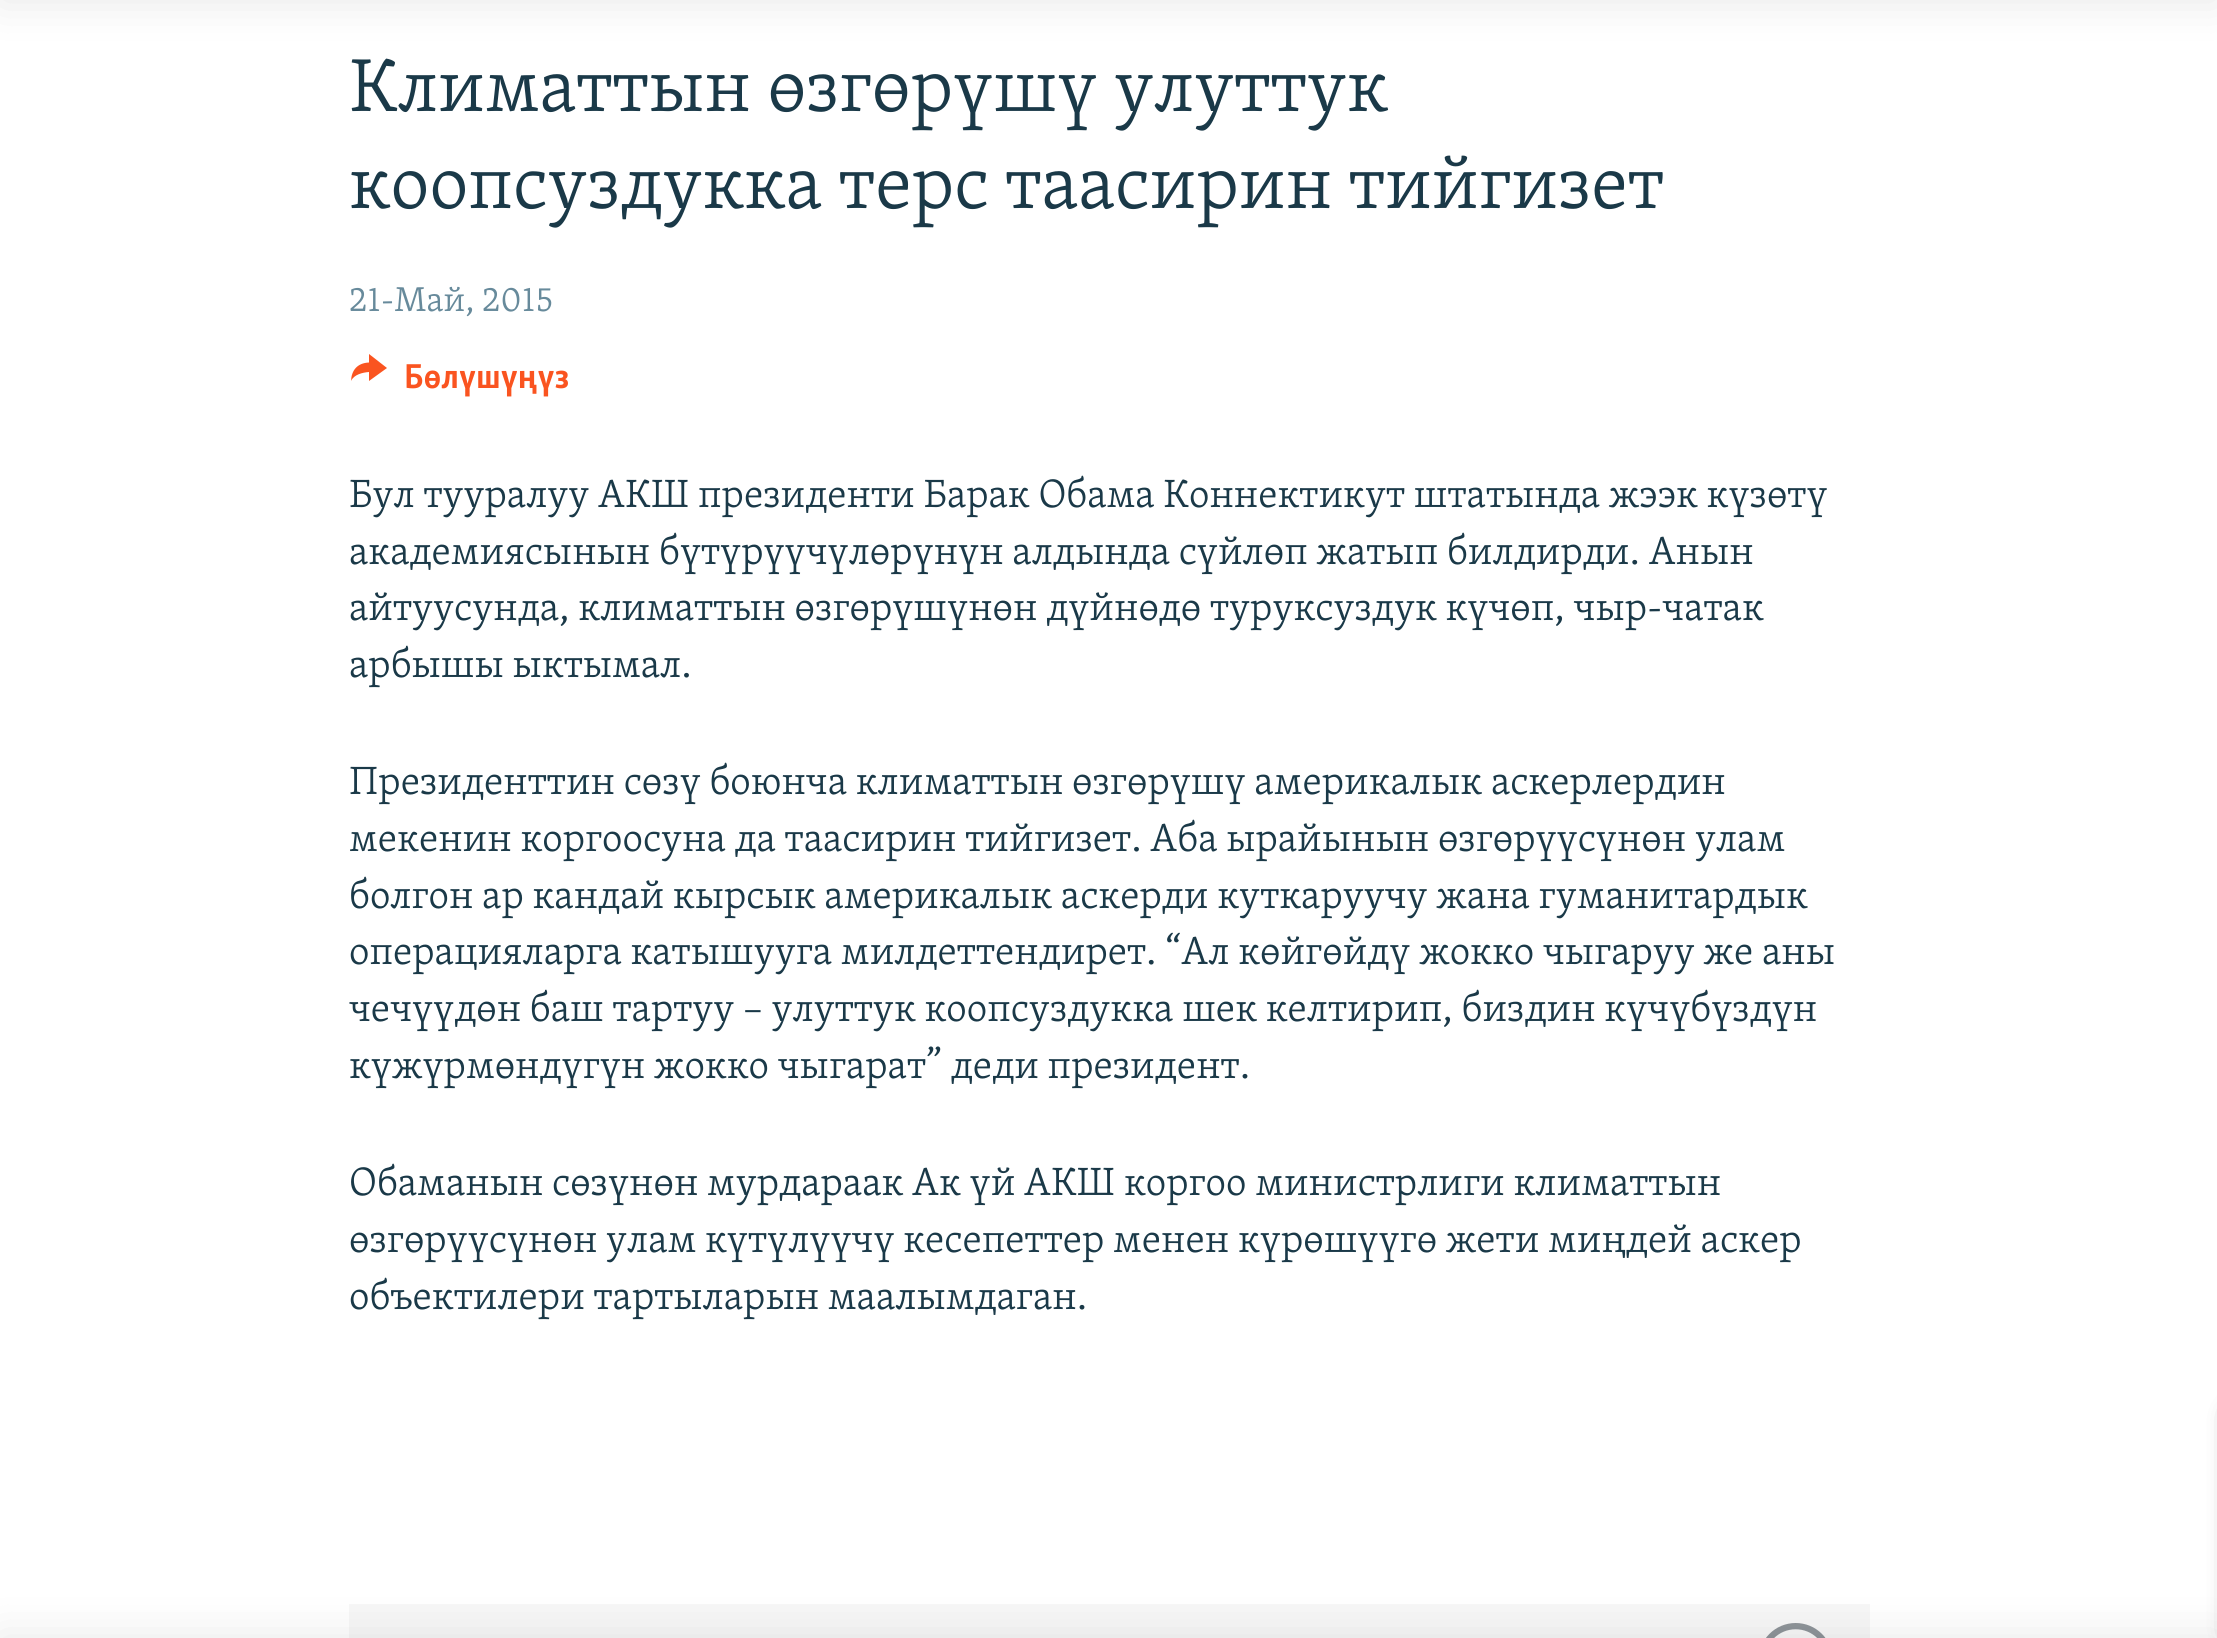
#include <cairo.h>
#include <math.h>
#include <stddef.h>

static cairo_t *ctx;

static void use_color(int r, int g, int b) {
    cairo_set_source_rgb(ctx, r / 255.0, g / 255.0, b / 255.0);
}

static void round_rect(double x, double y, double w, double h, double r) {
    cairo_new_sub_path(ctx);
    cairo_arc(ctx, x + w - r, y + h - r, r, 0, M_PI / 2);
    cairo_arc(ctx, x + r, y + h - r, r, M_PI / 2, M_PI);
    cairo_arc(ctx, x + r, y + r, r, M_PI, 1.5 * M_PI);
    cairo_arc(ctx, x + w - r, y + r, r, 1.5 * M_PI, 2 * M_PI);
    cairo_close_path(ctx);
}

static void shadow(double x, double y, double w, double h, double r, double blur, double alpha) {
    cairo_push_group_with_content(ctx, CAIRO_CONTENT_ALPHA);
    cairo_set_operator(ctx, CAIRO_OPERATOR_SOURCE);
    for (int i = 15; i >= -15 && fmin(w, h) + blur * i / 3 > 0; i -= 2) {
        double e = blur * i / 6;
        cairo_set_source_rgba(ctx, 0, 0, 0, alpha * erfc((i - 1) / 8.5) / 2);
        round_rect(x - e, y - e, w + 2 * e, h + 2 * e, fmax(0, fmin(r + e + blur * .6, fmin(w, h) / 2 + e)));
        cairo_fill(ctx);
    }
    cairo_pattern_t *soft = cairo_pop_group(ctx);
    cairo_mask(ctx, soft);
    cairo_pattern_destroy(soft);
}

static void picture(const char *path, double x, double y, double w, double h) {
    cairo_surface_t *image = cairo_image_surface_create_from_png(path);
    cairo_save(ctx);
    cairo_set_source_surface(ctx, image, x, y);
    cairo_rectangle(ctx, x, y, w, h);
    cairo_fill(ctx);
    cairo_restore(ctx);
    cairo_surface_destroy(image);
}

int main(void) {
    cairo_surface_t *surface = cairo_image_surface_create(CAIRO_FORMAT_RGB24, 2217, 1638);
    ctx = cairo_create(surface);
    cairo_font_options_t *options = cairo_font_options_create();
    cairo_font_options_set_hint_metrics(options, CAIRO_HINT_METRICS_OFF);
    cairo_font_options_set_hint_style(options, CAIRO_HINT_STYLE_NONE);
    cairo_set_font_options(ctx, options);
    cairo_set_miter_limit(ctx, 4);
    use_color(255, 255, 255);
    cairo_paint(ctx);
    use_color(0, 0, 0);
    shadow(0, -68, 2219, 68, 0, 22.5, 0.1);
    use_color(247, 247, 247);
    cairo_rectangle(ctx, 349, 1604, 1521, 34);
    cairo_fill(ctx);
    picture("img1.png", 1766, 1623, 60, 15);
    use_color(0, 0, 0);
    shadow(0, 1638, 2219, 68, 0, 22.5, 0.1);
    cairo_select_font_face(ctx, "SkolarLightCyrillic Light", CAIRO_FONT_SLANT_NORMAL, CAIRO_FONT_WEIGHT_NORMAL);
    cairo_set_font_size(ctx, 77);
    use_color(26, 57, 72);
    cairo_move_to(ctx, 349, 111);
    cairo_show_text(ctx, "Климаттын өзгөрүшү улуттук");
    cairo_move_to(ctx, 349, 208);
    cairo_show_text(ctx, "коопсуздукка терс таасирин тийгизет");
    cairo_set_font_size(ctx, 35.5);
    use_color(103, 138, 155);
    cairo_move_to(ctx, 349, 311);
    cairo_show_text(ctx, "21-Май, 2015");
    use_color(250, 84, 32);
    cairo_new_path(ctx);
    cairo_move_to(ctx, 351, 381);
    cairo_curve_to(ctx, 351.5, 370, 357.5, 363, 369, 362.5);
    cairo_line_to(ctx, 369, 354);
    cairo_line_to(ctx, 387, 368);
    cairo_line_to(ctx, 369, 381);
    cairo_line_to(ctx, 369, 372);
    cairo_curve_to(ctx, 362.5, 372.5, 354, 374.5, 351, 381);
    cairo_close_path(ctx);
    cairo_fill(ctx);
    cairo_select_font_face(ctx, "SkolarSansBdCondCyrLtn", CAIRO_FONT_SLANT_NORMAL, CAIRO_FONT_WEIGHT_BOLD);
    cairo_move_to(ctx, 404, 388);
    cairo_show_text(ctx, "Бөлүшүңүз");
    cairo_select_font_face(ctx, "SkolarLightCyrillic Light", CAIRO_FONT_SLANT_NORMAL, CAIRO_FONT_WEIGHT_NORMAL);
    cairo_set_font_size(ctx, 40.5);
    use_color(26, 57, 72);
    cairo_move_to(ctx, 349, 507);
    cairo_show_text(ctx, "Бул тууралуу АКШ президенти Барак Обама Коннектикут штатында жээк күзөтү");
    cairo_move_to(ctx, 349, 564);
    cairo_show_text(ctx, "академиясынын бүтүрүүчүлөрүнүн алдында сүйлөп жатып билдирди. Анын");
    cairo_move_to(ctx, 349, 620);
    cairo_show_text(ctx, "айтуусунда, климаттын өзгөрүшүнөн дүйнөдө туруксуздук күчөп, чыр-чатак");
    cairo_move_to(ctx, 349, 677);
    cairo_show_text(ctx, "арбышы ыктымал.");
    cairo_move_to(ctx, 349, 794);
    cairo_show_text(ctx, "Президенттин сөзү боюнча климаттын өзгөрүшү америкалык аскерлердин");
    cairo_move_to(ctx, 349, 851);
    cairo_show_text(ctx, "мекенин коргоосуна да таасирин тийгизет. Аба ырайынын өзгөрүүсүнөн улам");
    cairo_move_to(ctx, 349, 908);
    cairo_show_text(ctx, "болгон ар кандай кырсык америкалык аскерди куткаруучу жана гуманитардык");
    cairo_move_to(ctx, 349, 964);
    cairo_show_text(ctx, "операцияларга катышууга милдеттендирет. “Ал көйгөйдү жокко чыгаруу же аны");
    cairo_move_to(ctx, 349, 1021);
    cairo_show_text(ctx, "чечүүдөн баш тартуу – улуттук коопсуздукка шек келтирип, биздин күчүбүздүн");
    cairo_move_to(ctx, 349, 1078);
    cairo_show_text(ctx, "күжүрмөндүгүн жокко чыгарат” деди президент.");
    cairo_move_to(ctx, 349, 1195);
    cairo_show_text(ctx, "Обаманын сөзүнөн мурдараак Ак үй АКШ коргоо министрлиги климаттын");
    cairo_move_to(ctx, 349, 1252);
    cairo_show_text(ctx, "өзгөрүүсүнөн улам күтүлүүчү кесепеттер менен күрөшүүгө жети миңдей аскер");
    cairo_move_to(ctx, 349, 1309);
    cairo_show_text(ctx, "объектилери тартыларын маалымдаган.");
    use_color(0, 0, 0);
    shadow(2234, 1409, 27, 229, 11, 11, 0.85);
    cairo_surface_write_to_png(surface, "result.png");
    cairo_font_options_destroy(options);
    cairo_destroy(ctx);
    cairo_surface_destroy(surface);
    return 0;
}
